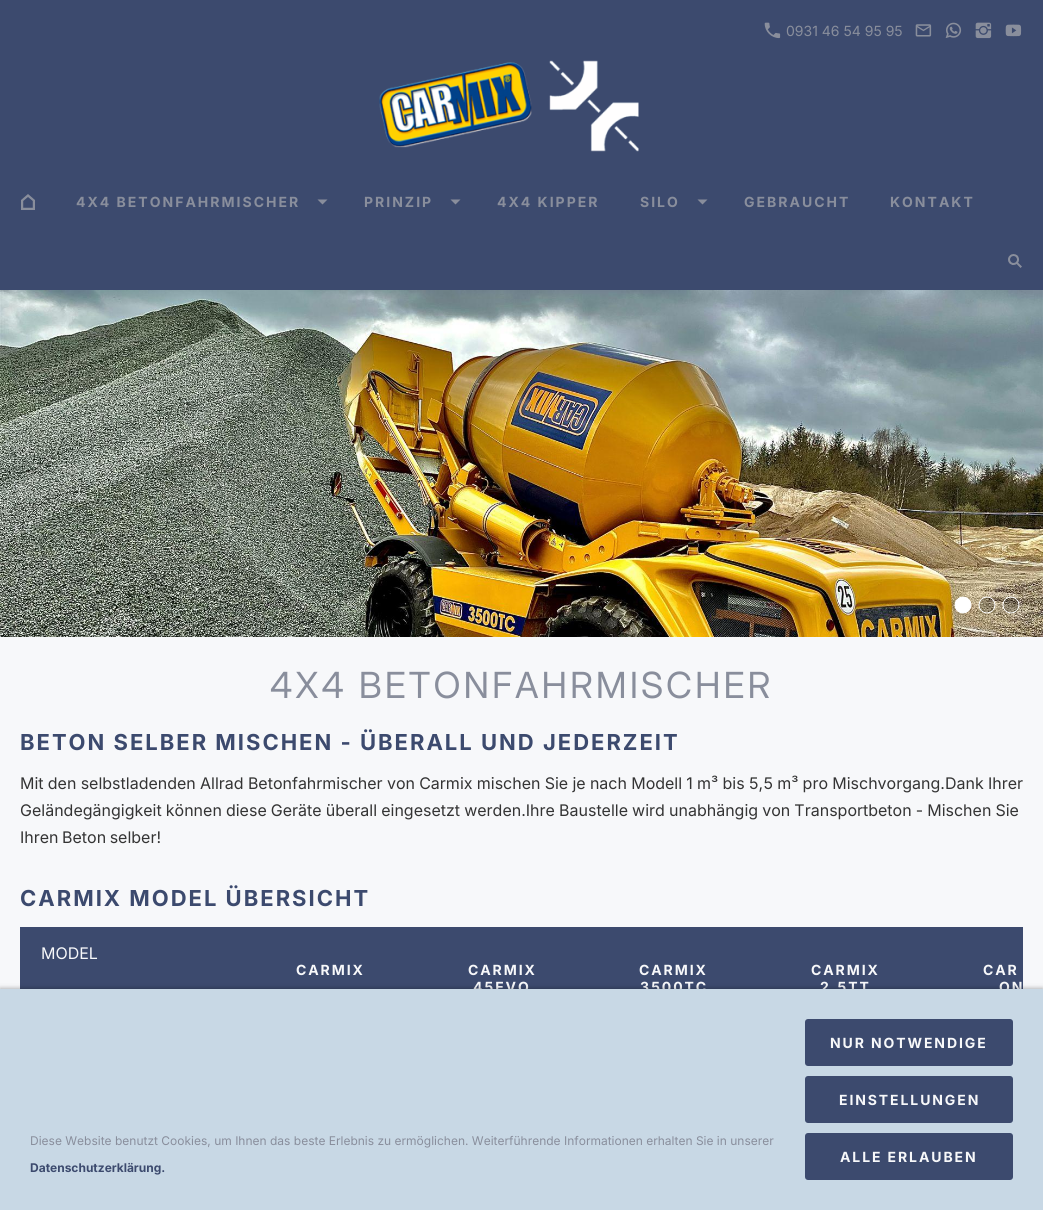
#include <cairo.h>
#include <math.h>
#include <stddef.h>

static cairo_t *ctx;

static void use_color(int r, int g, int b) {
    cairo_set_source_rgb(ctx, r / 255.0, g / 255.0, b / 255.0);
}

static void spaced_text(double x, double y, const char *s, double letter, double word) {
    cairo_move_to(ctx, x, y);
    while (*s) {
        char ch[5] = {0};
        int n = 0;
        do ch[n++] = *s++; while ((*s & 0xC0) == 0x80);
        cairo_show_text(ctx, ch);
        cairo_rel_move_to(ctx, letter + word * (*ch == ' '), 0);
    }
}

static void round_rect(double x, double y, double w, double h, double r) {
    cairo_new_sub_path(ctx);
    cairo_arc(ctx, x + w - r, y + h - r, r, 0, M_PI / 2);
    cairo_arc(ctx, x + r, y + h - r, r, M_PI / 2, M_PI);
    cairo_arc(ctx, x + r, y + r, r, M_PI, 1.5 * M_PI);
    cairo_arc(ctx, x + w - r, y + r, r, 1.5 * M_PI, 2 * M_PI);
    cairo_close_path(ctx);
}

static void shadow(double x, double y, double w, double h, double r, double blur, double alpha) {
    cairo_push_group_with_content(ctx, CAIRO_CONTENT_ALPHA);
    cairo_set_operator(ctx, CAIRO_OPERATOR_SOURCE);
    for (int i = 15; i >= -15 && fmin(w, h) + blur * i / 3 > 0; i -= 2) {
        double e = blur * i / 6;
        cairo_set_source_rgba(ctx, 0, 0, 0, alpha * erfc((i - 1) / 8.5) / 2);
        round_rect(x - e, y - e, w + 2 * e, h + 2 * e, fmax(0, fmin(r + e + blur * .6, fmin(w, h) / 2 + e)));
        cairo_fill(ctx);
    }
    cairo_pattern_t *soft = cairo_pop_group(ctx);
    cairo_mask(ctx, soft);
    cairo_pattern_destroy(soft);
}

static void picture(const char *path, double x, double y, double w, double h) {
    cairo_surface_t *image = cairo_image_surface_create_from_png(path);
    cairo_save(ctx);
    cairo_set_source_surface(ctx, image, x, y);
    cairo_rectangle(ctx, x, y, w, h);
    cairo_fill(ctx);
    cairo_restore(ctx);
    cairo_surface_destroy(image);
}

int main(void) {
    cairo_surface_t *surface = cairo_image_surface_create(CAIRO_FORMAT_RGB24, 1043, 1210);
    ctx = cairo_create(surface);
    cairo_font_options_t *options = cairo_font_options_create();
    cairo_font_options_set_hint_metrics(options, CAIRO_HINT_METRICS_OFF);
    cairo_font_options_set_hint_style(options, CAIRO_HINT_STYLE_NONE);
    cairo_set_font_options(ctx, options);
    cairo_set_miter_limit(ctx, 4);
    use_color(247, 248, 250);
    cairo_paint(ctx);
    use_color(60, 74, 110);
    cairo_rectangle(ctx, 0, 0, 1043, 290);
    cairo_fill(ctx);
    picture("img1.png", 764, 22, 17, 17);
    cairo_select_font_face(ctx, "Inter", CAIRO_FONT_SLANT_NORMAL, CAIRO_FONT_WEIGHT_NORMAL);
    cairo_set_font_size(ctx, 14);
    use_color(137, 142, 156);
    cairo_move_to(ctx, 786, 36);
    cairo_show_text(ctx, "0931 46 54 95 95");
    picture("img2.png", 915, 24, 17, 13);
    picture("img3.png", 945, 22, 17, 16);
    picture("img4.png", 975, 22, 17, 17);
    picture("img5.png", 1005, 24, 17, 13);
    picture("img6.png", 379, 60, 260, 92);
    picture("img7.png", 21, 194, 14, 16);
    picture("img8.png", 317, 199, 11, 6);
    cairo_select_font_face(ctx, "Inter", CAIRO_FONT_SLANT_NORMAL, CAIRO_FONT_WEIGHT_BOLD);
    spaced_text(76, 207, "4X4 BETONFAHRMISCHER", 2, 0);
    picture("img8.png", 450, 199, 11, 6);
    spaced_text(364, 207, "PRINZIP", 2, 0);
    spaced_text(497, 207, "4X4 KIPPER", 2, 0);
    picture("img8.png", 697, 199, 11, 6);
    spaced_text(640, 207, "SILO", 2, 0);
    spaced_text(744, 207, "GEBRAUCHT", 2, 0);
    spaced_text(890, 207, "KONTAKT", 2, 0);
    picture("img9.png", 1008, 254, 14, 14);
    picture("img10.png", 0, 290, 1043, 347);
    picture("img11.png", 954, 596, 18, 18);
    picture("img12.png", 978, 596, 18, 18);
    picture("img13.png", 1002, 596, 18, 18);
    cairo_select_font_face(ctx, "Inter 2", CAIRO_FONT_SLANT_NORMAL, CAIRO_FONT_WEIGHT_NORMAL);
    cairo_set_font_size(ctx, 36);
    spaced_text(270, 698, "4X4 BETONFAHRMISCHER", 3, 0);
    cairo_select_font_face(ctx, "Inter", CAIRO_FONT_SLANT_NORMAL, CAIRO_FONT_WEIGHT_BOLD);
    cairo_set_font_size(ctx, 22);
    use_color(60, 74, 110);
    spaced_text(20, 750, "BETON SELBER MISCHEN - ÜBERALL UND JEDERZEIT", 2, 0);
    cairo_select_font_face(ctx, "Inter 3", CAIRO_FONT_SLANT_NORMAL, CAIRO_FONT_WEIGHT_NORMAL);
    cairo_set_font_size(ctx, 16);
    use_color(52, 52, 52);
    spaced_text(20, 789, "Mit den selbstladenden Allrad Betonfahrmischer von Carmix mischen Sie je nach Modell 1 m³ bis 5,5 m³ pro Mischvorgang.Dank Ihrer", 0, -0.25);
    spaced_text(20, 816, "Geländegängigkeit können diese Geräte überall eingesetzt werden.Ihre Baustelle wird unabhängig von Transportbeton - Mischen Sie", 0, -0.4);
    spaced_text(20, 843, "Ihren Beton selber!", 0, -1);
    cairo_select_font_face(ctx, "Inter", CAIRO_FONT_SLANT_NORMAL, CAIRO_FONT_WEIGHT_BOLD);
    cairo_set_font_size(ctx, 22);
    use_color(60, 74, 110);
    spaced_text(20, 906, "CARMIX MODEL ÜBERSICHT", 2, 0);
    cairo_rectangle(ctx, 21, 928, 223, 61);
    cairo_fill(ctx);
    cairo_rectangle(ctx, 244, 927, 779, 62);
    cairo_fill(ctx);
    cairo_rectangle(ctx, 20, 927, 225, 1);
    cairo_fill(ctx);
    cairo_rectangle(ctx, 20, 927, 1, 62);
    cairo_fill(ctx);
    cairo_select_font_face(ctx, "Inter 3", CAIRO_FONT_SLANT_NORMAL, CAIRO_FONT_WEIGHT_NORMAL);
    cairo_set_font_size(ctx, 16);
    use_color(247, 248, 250);
    cairo_move_to(ctx, 41, 959);
    cairo_show_text(ctx, "MODEL");
    cairo_select_font_face(ctx, "Inter", CAIRO_FONT_SLANT_NORMAL, CAIRO_FONT_WEIGHT_BOLD);
    cairo_set_font_size(ctx, 14);
    spaced_text(296, 975, "CARMIX", 1.9, 0);
    spaced_text(468, 975, "CARMIX", 1.9, 0);
    spaced_text(473, 992, "45EVO", 1.9, 0);
    spaced_text(639, 975, "CARMIX", 1.9, 0);
    spaced_text(640, 992, "3500TC", 1.9, 0);
    spaced_text(811, 975, "CARMIX", 1.9, 0);
    spaced_text(820, 992, "2.5TT", 1.9, 0);
    spaced_text(983, 975, "CAR", 1.9, 0);
    spaced_text(999, 992, "ON", 1.9, 0);
    use_color(0, 0, 0);
    shadow(0, 989, 1043, 221, 0, 2.5, 0.4);
    use_color(200, 216, 229);
    cairo_rectangle(ctx, 0, 989, 1043, 221);
    cairo_fill(ctx);
    cairo_select_font_face(ctx, "Inter 3", CAIRO_FONT_SLANT_NORMAL, CAIRO_FONT_WEIGHT_NORMAL);
    cairo_set_font_size(ctx, 12);
    use_color(137, 142, 156);
    cairo_move_to(ctx, 30, 1145);
    cairo_show_text(ctx, "Diese Website benutzt Cookies, um Ihnen das beste Erlebnis zu ermöglichen. Weiterführende Informationen erhalten Sie in unserer");
    cairo_select_font_face(ctx, "Inter", CAIRO_FONT_SLANT_NORMAL, CAIRO_FONT_WEIGHT_BOLD);
    use_color(60, 74, 110);
    cairo_move_to(ctx, 30, 1172);
    cairo_show_text(ctx, "Datenschutzerklärung.");
    round_rect(805, 1019, 208, 47, 3);
    cairo_fill(ctx);
    cairo_set_font_size(ctx, 14);
    use_color(247, 248, 250);
    spaced_text(830, 1048, "NUR NOTWENDIGE", 1.9, 0);
    use_color(60, 74, 110);
    round_rect(805, 1076, 208, 47, 3);
    cairo_fill(ctx);
    use_color(247, 248, 250);
    spaced_text(839, 1105, "EINSTELLUNGEN", 1.9, 0);
    use_color(60, 74, 110);
    round_rect(805, 1133, 208, 47, 3);
    cairo_fill(ctx);
    use_color(247, 248, 250);
    spaced_text(840, 1162, "ALLE ERLAUBEN", 1.9, 0);
    cairo_surface_write_to_png(surface, "result.png");
    cairo_font_options_destroy(options);
    cairo_destroy(ctx);
    cairo_surface_destroy(surface);
    return 0;
}
